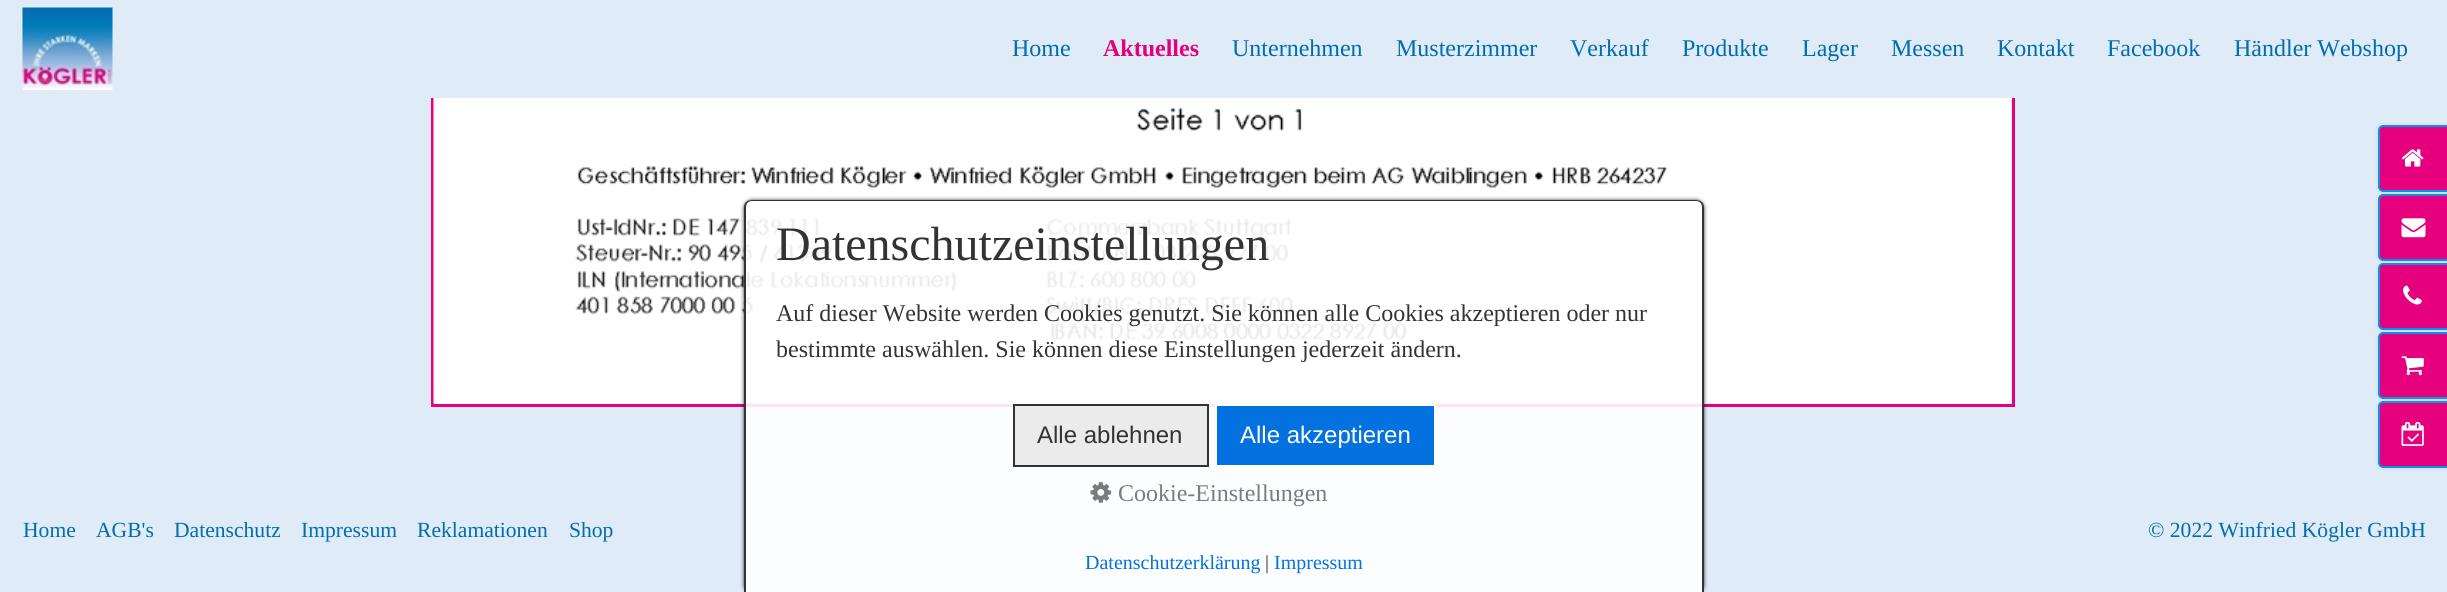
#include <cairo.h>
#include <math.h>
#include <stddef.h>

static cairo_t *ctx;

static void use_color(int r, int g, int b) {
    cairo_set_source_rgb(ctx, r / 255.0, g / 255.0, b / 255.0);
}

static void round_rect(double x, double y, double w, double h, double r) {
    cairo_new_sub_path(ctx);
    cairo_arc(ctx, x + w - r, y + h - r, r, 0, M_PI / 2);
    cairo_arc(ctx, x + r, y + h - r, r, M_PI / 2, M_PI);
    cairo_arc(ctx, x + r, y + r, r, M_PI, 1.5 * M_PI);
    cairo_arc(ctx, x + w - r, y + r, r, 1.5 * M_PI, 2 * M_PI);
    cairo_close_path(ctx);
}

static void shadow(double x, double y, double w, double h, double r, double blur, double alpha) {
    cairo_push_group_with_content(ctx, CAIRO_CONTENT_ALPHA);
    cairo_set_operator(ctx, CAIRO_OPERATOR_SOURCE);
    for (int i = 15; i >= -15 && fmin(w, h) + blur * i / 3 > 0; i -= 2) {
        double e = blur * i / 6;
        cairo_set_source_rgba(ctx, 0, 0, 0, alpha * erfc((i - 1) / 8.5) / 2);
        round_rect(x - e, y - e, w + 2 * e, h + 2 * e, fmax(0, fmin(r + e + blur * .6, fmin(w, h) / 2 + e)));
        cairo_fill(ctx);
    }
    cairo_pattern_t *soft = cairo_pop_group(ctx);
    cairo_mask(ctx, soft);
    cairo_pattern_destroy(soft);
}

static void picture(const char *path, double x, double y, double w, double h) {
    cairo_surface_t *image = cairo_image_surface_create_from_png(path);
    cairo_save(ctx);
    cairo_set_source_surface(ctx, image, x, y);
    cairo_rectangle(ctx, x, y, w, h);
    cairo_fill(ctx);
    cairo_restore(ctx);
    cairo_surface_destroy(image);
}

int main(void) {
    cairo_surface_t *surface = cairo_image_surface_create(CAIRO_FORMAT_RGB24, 2447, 592);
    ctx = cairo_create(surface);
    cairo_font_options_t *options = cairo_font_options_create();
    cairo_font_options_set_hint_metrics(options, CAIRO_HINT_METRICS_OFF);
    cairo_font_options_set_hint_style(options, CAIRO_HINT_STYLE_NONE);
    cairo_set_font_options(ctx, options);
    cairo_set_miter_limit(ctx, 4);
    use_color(223, 235, 246);
    cairo_paint(ctx);
    cairo_rectangle(ctx, 432.5, -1.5, 1581, 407);
    use_color(230, 0, 126);
    cairo_set_line_width(ctx, 3);
    cairo_stroke(ctx);
    picture("img1.png", 433, 98, 1579, 306);
    use_color(223, 235, 246);
    cairo_rectangle(ctx, 431, 0, 1584, 98);
    cairo_fill(ctx);
    picture("img2.png", 22, 7, 91, 83);
    cairo_select_font_face(ctx, "Liberation Serif", CAIRO_FONT_SLANT_NORMAL, CAIRO_FONT_WEIGHT_NORMAL);
    cairo_set_font_size(ctx, 24);
    use_color(0, 109, 175);
    cairo_move_to(ctx, 1012, 56);
    cairo_show_text(ctx, "Home");
    cairo_select_font_face(ctx, "Liberation Serif", CAIRO_FONT_SLANT_NORMAL, CAIRO_FONT_WEIGHT_BOLD);
    use_color(230, 0, 126);
    cairo_move_to(ctx, 1103, 56);
    cairo_show_text(ctx, "Aktuelles");
    cairo_select_font_face(ctx, "Liberation Serif", CAIRO_FONT_SLANT_NORMAL, CAIRO_FONT_WEIGHT_NORMAL);
    use_color(0, 109, 175);
    cairo_move_to(ctx, 1232, 56);
    cairo_show_text(ctx, "Unternehmen");
    cairo_move_to(ctx, 1396, 56);
    cairo_show_text(ctx, "Musterzimmer");
    cairo_move_to(ctx, 1570, 56);
    cairo_show_text(ctx, "Verkauf");
    cairo_move_to(ctx, 1682, 56);
    cairo_show_text(ctx, "Produkte");
    cairo_move_to(ctx, 1802, 56);
    cairo_show_text(ctx, "Lager");
    cairo_move_to(ctx, 1891, 56);
    cairo_show_text(ctx, "Messen");
    cairo_move_to(ctx, 1997, 56);
    cairo_show_text(ctx, "Kontakt");
    cairo_move_to(ctx, 2107, 56);
    cairo_show_text(ctx, "Facebook");
    cairo_move_to(ctx, 2234, 56);
    cairo_show_text(ctx, "Händler Webshop");
    cairo_save(ctx);
    cairo_set_fill_rule(ctx, CAIRO_FILL_RULE_EVEN_ODD);
    cairo_new_path(ctx);
    cairo_move_to(ctx, 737, 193);
    cairo_line_to(ctx, 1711, 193);
    cairo_line_to(ctx, 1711, 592);
    cairo_line_to(ctx, 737, 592);
    cairo_close_path(ctx);
    cairo_move_to(ctx, 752, 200);
    cairo_line_to(ctx, 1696, 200);
    cairo_curve_to(ctx, 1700.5, 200, 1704, 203.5, 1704, 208);
    cairo_line_to(ctx, 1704, 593);
    cairo_line_to(ctx, 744, 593);
    cairo_line_to(ctx, 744, 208);
    cairo_curve_to(ctx, 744, 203.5, 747.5, 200, 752, 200);
    cairo_close_path(ctx);
    cairo_clip(ctx);
    use_color(0, 0, 0);
    shadow(744, 200, 960, 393, 8, 2, 0.8);
    cairo_restore(ctx);
    cairo_set_source_rgba(ctx, 1, 1, 1, 0.9);
    cairo_new_path(ctx);
    cairo_move_to(ctx, 752, 200);
    cairo_line_to(ctx, 1696, 200);
    cairo_curve_to(ctx, 1700.5, 200, 1704, 203.5, 1704, 208);
    cairo_line_to(ctx, 1704, 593);
    cairo_line_to(ctx, 744, 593);
    cairo_line_to(ctx, 744, 208);
    cairo_curve_to(ctx, 744, 203.5, 747.5, 200, 752, 200);
    cairo_close_path(ctx);
    cairo_fill(ctx);
    use_color(51, 51, 51);
    cairo_set_fill_rule(ctx, CAIRO_FILL_RULE_EVEN_ODD);
    cairo_new_path(ctx);
    cairo_move_to(ctx, 752, 200);
    cairo_line_to(ctx, 1696, 200);
    cairo_curve_to(ctx, 1701, 200, 1704, 203, 1704, 207);
    cairo_line_to(ctx, 1704, 592);
    cairo_line_to(ctx, 744, 592);
    cairo_line_to(ctx, 744, 207);
    cairo_curve_to(ctx, 744, 203, 747, 200, 752, 200);
    cairo_close_path(ctx);
    cairo_move_to(ctx, 752, 201);
    cairo_line_to(ctx, 1696, 201);
    cairo_curve_to(ctx, 1700, 201, 1702, 204, 1702, 207);
    cairo_line_to(ctx, 1702, 592);
    cairo_line_to(ctx, 746, 592);
    cairo_line_to(ctx, 746, 207);
    cairo_curve_to(ctx, 746, 204, 748, 201, 752, 201);
    cairo_close_path(ctx);
    cairo_fill(ctx);
    cairo_set_font_size(ctx, 48);
    cairo_move_to(ctx, 776, 260);
    cairo_show_text(ctx, "Datenschutzeinstellungen");
    cairo_set_font_size(ctx, 24);
    cairo_move_to(ctx, 776, 321);
    cairo_show_text(ctx, "Auf dieser Website werden Cookies genutzt. Sie können alle Cookies akzeptieren oder nur");
    cairo_move_to(ctx, 776, 357);
    cairo_show_text(ctx, "bestimmte auswählen. Sie können diese Einstellungen jederzeit ändern.");
    use_color(235, 235, 235);
    cairo_rectangle(ctx, 1014, 405, 194, 61);
    cairo_fill_preserve(ctx);
    use_color(51, 51, 51);
    cairo_set_line_width(ctx, 2);
    cairo_stroke(ctx);
    cairo_select_font_face(ctx, "Liberation Sans", CAIRO_FONT_SLANT_NORMAL, CAIRO_FONT_WEIGHT_NORMAL);
    cairo_move_to(ctx, 1037, 443);
    cairo_show_text(ctx, "Alle ablehnen");
    use_color(3, 113, 223);
    cairo_rectangle(ctx, 1216, 405, 219, 61);
    cairo_fill_preserve(ctx);
    use_color(255, 255, 255);
    cairo_stroke(ctx);
    cairo_move_to(ctx, 1240, 443);
    cairo_show_text(ctx, "Alle akzeptieren");
    picture("img3.png", 1090, 482, 22, 21);
    cairo_select_font_face(ctx, "Liberation Serif", CAIRO_FONT_SLANT_NORMAL, CAIRO_FONT_WEIGHT_NORMAL);
    use_color(124, 124, 124);
    cairo_move_to(ctx, 1118, 501);
    cairo_show_text(ctx, "Cookie-Einstellungen");
    cairo_set_font_size(ctx, 20);
    use_color(3, 113, 223);
    cairo_move_to(ctx, 1085, 569);
    cairo_show_text(ctx, "Datenschutzerklärung");
    use_color(51, 51, 51);
    cairo_move_to(ctx, 1265, 569);
    cairo_show_text(ctx, "|");
    use_color(3, 113, 223);
    cairo_move_to(ctx, 1274, 569);
    cairo_show_text(ctx, "Impressum");
    use_color(0, 0, 0);
    shadow(2378, 125, 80, 67, 5, 2, 0.1);
    use_color(230, 0, 126);
    cairo_new_path(ctx);
    cairo_move_to(ctx, 2383, 126);
    cairo_line_to(ctx, 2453, 126);
    cairo_line_to(ctx, 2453, 191);
    cairo_line_to(ctx, 2383, 191);
    cairo_curve_to(ctx, 2381, 191, 2379, 189, 2379, 187);
    cairo_line_to(ctx, 2379, 130);
    cairo_curve_to(ctx, 2379, 128, 2381, 126, 2383, 126);
    cairo_close_path(ctx);
    cairo_fill_preserve(ctx);
    use_color(10, 146, 235);
    cairo_stroke(ctx);
    picture("img4.png", 2401, 149, 23, 18);
    use_color(0, 0, 0);
    shadow(2378, 194, 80, 67, 5, 2, 0.1);
    use_color(230, 0, 126);
    cairo_new_path(ctx);
    cairo_move_to(ctx, 2383, 195);
    cairo_line_to(ctx, 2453, 195);
    cairo_line_to(ctx, 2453, 260);
    cairo_line_to(ctx, 2383, 260);
    cairo_curve_to(ctx, 2381, 260, 2379, 258, 2379, 256);
    cairo_line_to(ctx, 2379, 199);
    cairo_curve_to(ctx, 2379, 197, 2381, 195, 2383, 195);
    cairo_close_path(ctx);
    cairo_fill_preserve(ctx);
    use_color(10, 146, 235);
    cairo_stroke(ctx);
    picture("img5.png", 2401, 218, 25, 20);
    use_color(0, 0, 0);
    shadow(2378, 263, 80, 67, 5, 2, 0.1);
    use_color(230, 0, 126);
    cairo_new_path(ctx);
    cairo_move_to(ctx, 2383, 264);
    cairo_line_to(ctx, 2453, 264);
    cairo_line_to(ctx, 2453, 329);
    cairo_line_to(ctx, 2383, 329);
    cairo_curve_to(ctx, 2381, 329, 2379, 327, 2379, 325);
    cairo_line_to(ctx, 2379, 268);
    cairo_curve_to(ctx, 2379, 266, 2381, 264, 2383, 264);
    cairo_close_path(ctx);
    cairo_fill_preserve(ctx);
    use_color(10, 146, 235);
    cairo_stroke(ctx);
    picture("img6.png", 2403, 285, 19, 20);
    use_color(0, 0, 0);
    shadow(2378, 332, 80, 67, 5, 2, 0.1);
    use_color(230, 0, 126);
    cairo_new_path(ctx);
    cairo_move_to(ctx, 2383, 333);
    cairo_line_to(ctx, 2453, 333);
    cairo_line_to(ctx, 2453, 398);
    cairo_line_to(ctx, 2383, 398);
    cairo_curve_to(ctx, 2381, 398, 2379, 396, 2379, 394);
    cairo_line_to(ctx, 2379, 337);
    cairo_curve_to(ctx, 2379, 335, 2381, 333, 2383, 333);
    cairo_close_path(ctx);
    cairo_fill_preserve(ctx);
    use_color(10, 146, 235);
    cairo_stroke(ctx);
    picture("img7.png", 2401, 356, 23, 20);
    use_color(0, 0, 0);
    shadow(2378, 401, 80, 67, 5, 2, 0.1);
    use_color(230, 0, 126);
    cairo_new_path(ctx);
    cairo_move_to(ctx, 2383, 402);
    cairo_line_to(ctx, 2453, 402);
    cairo_line_to(ctx, 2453, 467);
    cairo_line_to(ctx, 2383, 467);
    cairo_curve_to(ctx, 2381, 467, 2379, 465, 2379, 463);
    cairo_line_to(ctx, 2379, 406);
    cairo_curve_to(ctx, 2379, 404, 2381, 402, 2383, 402);
    cairo_close_path(ctx);
    cairo_fill_preserve(ctx);
    use_color(10, 146, 235);
    cairo_stroke(ctx);
    picture("img8.png", 2401, 421, 23, 25);
    cairo_set_font_size(ctx, 21.6);
    use_color(0, 109, 175);
    cairo_move_to(ctx, 23, 537);
    cairo_show_text(ctx, "Home");
    cairo_move_to(ctx, 96, 537);
    cairo_show_text(ctx, "AGB's");
    cairo_move_to(ctx, 174, 537);
    cairo_show_text(ctx, "Datenschutz");
    cairo_move_to(ctx, 301, 537);
    cairo_show_text(ctx, "Impressum");
    cairo_move_to(ctx, 417, 537);
    cairo_show_text(ctx, "Reklamationen");
    cairo_move_to(ctx, 569, 537);
    cairo_show_text(ctx, "Shop");
    cairo_move_to(ctx, 2148, 537);
    cairo_show_text(ctx, "© 2022 Winfried Kögler GmbH");
    cairo_surface_write_to_png(surface, "result.png");
    cairo_font_options_destroy(options);
    cairo_destroy(ctx);
    cairo_surface_destroy(surface);
    return 0;
}
